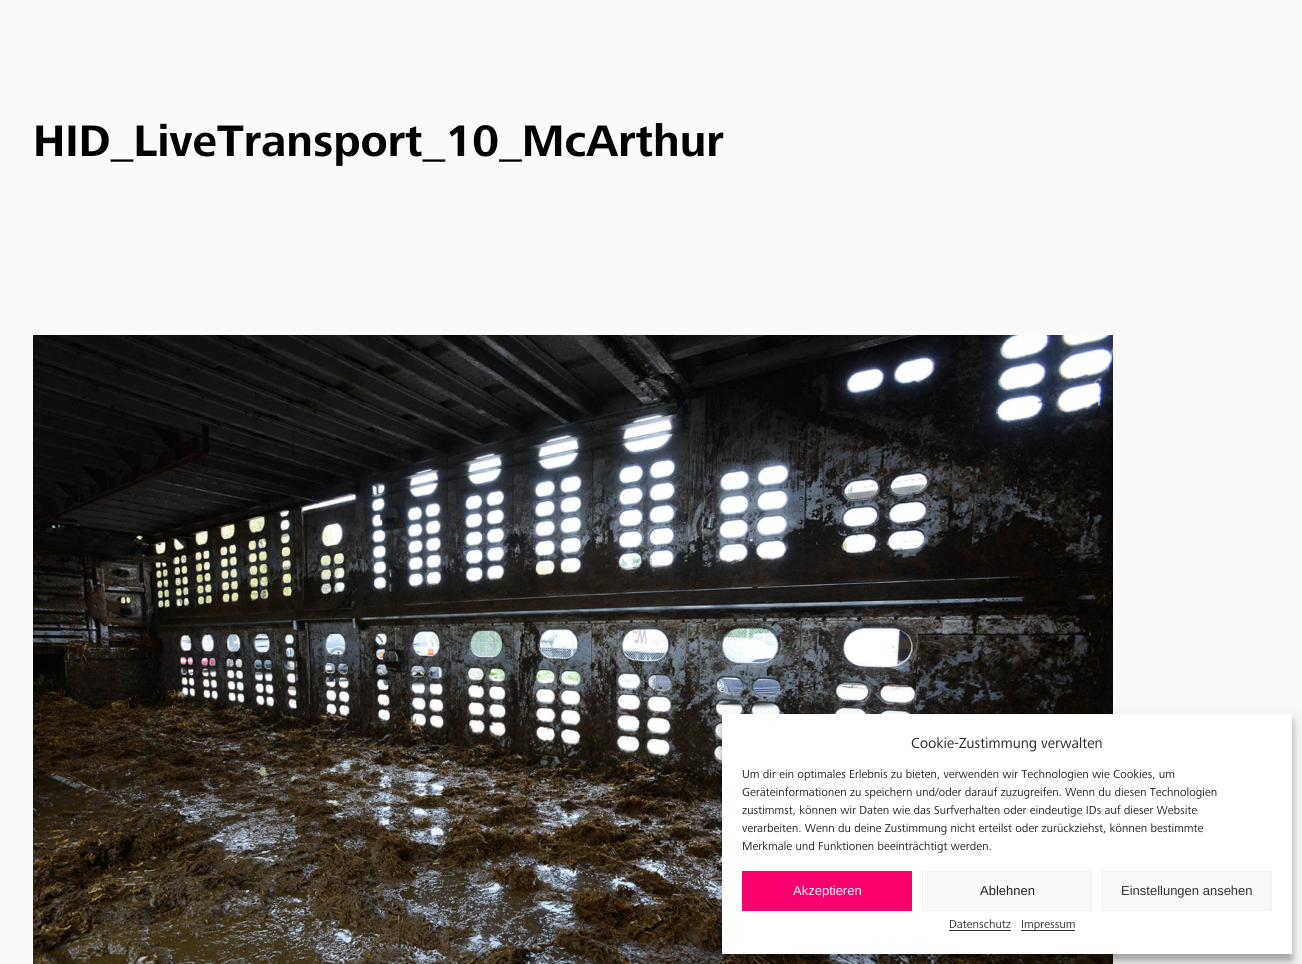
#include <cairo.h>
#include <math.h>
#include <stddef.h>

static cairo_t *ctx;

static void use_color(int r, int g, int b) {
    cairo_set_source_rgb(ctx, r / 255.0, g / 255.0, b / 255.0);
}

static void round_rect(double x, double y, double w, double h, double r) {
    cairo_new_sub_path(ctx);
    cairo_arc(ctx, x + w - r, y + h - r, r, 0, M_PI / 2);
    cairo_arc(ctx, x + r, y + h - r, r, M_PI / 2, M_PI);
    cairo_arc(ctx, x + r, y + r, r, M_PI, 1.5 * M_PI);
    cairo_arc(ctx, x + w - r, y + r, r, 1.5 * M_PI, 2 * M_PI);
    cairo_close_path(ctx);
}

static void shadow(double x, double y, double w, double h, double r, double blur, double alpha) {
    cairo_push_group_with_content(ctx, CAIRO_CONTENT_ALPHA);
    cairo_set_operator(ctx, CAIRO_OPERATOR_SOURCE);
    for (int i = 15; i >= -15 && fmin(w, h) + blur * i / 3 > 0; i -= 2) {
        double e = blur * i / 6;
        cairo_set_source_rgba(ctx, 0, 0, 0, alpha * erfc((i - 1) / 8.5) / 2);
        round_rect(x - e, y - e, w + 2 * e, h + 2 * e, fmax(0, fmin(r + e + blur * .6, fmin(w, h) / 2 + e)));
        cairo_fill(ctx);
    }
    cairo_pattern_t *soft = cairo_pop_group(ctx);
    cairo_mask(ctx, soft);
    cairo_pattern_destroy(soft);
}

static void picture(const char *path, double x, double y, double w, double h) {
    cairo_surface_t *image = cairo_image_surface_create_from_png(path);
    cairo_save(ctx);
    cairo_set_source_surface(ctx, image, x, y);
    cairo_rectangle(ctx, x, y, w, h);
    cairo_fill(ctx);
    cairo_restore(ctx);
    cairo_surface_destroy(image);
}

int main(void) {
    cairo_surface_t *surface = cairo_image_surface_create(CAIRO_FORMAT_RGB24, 1302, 964);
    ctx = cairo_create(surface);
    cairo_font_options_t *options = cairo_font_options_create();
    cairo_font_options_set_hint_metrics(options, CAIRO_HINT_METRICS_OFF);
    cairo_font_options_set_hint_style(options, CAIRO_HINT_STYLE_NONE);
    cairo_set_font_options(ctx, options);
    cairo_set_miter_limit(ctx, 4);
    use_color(251, 250, 250);
    cairo_paint(ctx);
    picture("img1.png", 36, 123, 688, 43);
    picture("img2.png", 33, 335, 1080, 629);
    use_color(0, 0, 0);
    shadow(722, 720, 570, 240, 0, 3, 0.23);
    shadow(722, 724, 570, 240, 0, 10, 0.19);
    use_color(255, 255, 255);
    cairo_rectangle(ctx, 722, 714, 570, 240);
    cairo_fill(ctx);
    picture("img3.png", 911, 737, 191, 15);
    picture("img4.png", 742, 769, 433, 12);
    picture("img5.png", 742, 787, 475, 12);
    picture("img6.png", 742, 805, 455, 12);
    picture("img7.png", 742, 823, 461, 12);
    picture("img8.png", 743, 841, 248, 12);
    use_color(250, 0, 108);
    cairo_rectangle(ctx, 742, 871, 170, 40);
    cairo_fill(ctx);
    cairo_select_font_face(ctx, "Liberation Sans", CAIRO_FONT_SLANT_NORMAL, CAIRO_FONT_WEIGHT_NORMAL);
    cairo_set_font_size(ctx, 13);
    use_color(255, 255, 255);
    cairo_move_to(ctx, 793, 895);
    cairo_show_text(ctx, "Akzeptieren");
    use_color(249, 249, 249);
    cairo_rectangle(ctx, 922.5, 871.5, 169, 39);
    cairo_fill_preserve(ctx);
    use_color(242, 242, 242);
    cairo_set_line_width(ctx, 1);
    cairo_stroke(ctx);
    use_color(34, 34, 34);
    cairo_move_to(ctx, 980, 895);
    cairo_show_text(ctx, "Ablehnen");
    use_color(249, 249, 249);
    cairo_rectangle(ctx, 1102.5, 871.5, 169, 39);
    cairo_fill_preserve(ctx);
    use_color(242, 242, 242);
    cairo_stroke(ctx);
    use_color(51, 51, 51);
    cairo_move_to(ctx, 1121, 895);
    cairo_show_text(ctx, "Einstellungen ansehen");
    picture("img9.png", 950, 919, 61, 10);
    cairo_rectangle(ctx, 949, 930, 62, 1);
    cairo_fill(ctx);
    picture("img10.png", 1022, 920, 53, 10);
    cairo_rectangle(ctx, 1021, 930, 54, 1);
    cairo_fill(ctx);
    cairo_surface_write_to_png(surface, "result.png");
    cairo_font_options_destroy(options);
    cairo_destroy(ctx);
    cairo_surface_destroy(surface);
    return 0;
}
